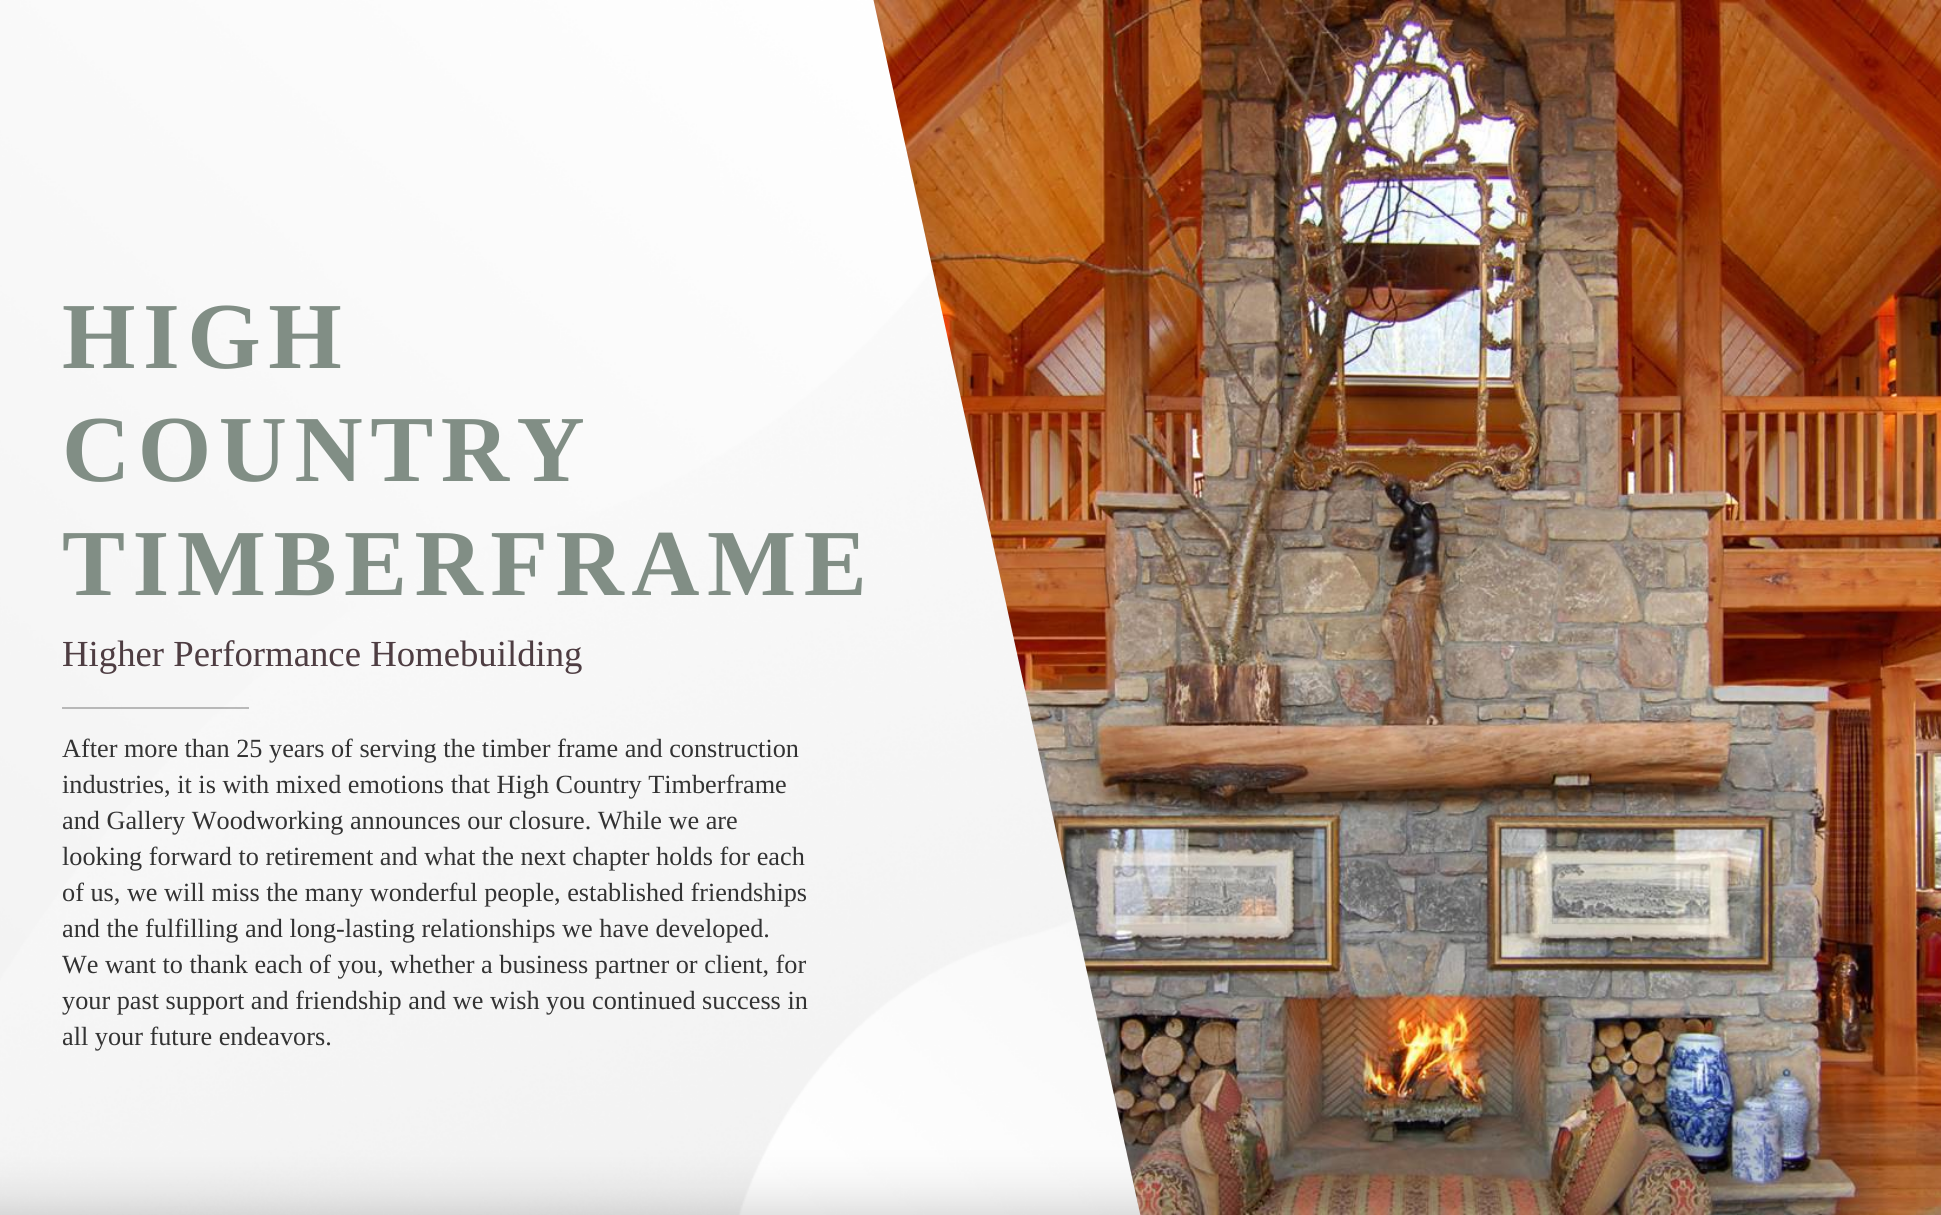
#include <cairo.h>
#include <math.h>
#include <stddef.h>

static cairo_t *ctx;

static void use_color(int r, int g, int b) {
    cairo_set_source_rgb(ctx, r / 255.0, g / 255.0, b / 255.0);
}

static void spaced_text(double x, double y, const char *s, double letter, double word) {
    cairo_move_to(ctx, x, y);
    while (*s) {
        char ch[5] = {0};
        int n = 0;
        do ch[n++] = *s++; while ((*s & 0xC0) == 0x80);
        cairo_show_text(ctx, ch);
        cairo_rel_move_to(ctx, letter + word * (*ch == ' '), 0);
    }
}

static void picture(const char *path, double x, double y, double w, double h) {
    cairo_surface_t *image = cairo_image_surface_create_from_png(path);
    cairo_save(ctx);
    cairo_set_source_surface(ctx, image, x, y);
    cairo_rectangle(ctx, x, y, w, h);
    cairo_fill(ctx);
    cairo_restore(ctx);
    cairo_surface_destroy(image);
}

int main(void) {
    cairo_surface_t *surface = cairo_image_surface_create(CAIRO_FORMAT_RGB24, 1941, 1215);
    ctx = cairo_create(surface);
    cairo_font_options_t *options = cairo_font_options_create();
    cairo_font_options_set_hint_metrics(options, CAIRO_HINT_METRICS_OFF);
    cairo_font_options_set_hint_style(options, CAIRO_HINT_STYLE_NONE);
    cairo_set_font_options(ctx, options);
    cairo_set_miter_limit(ctx, 4);
    use_color(255, 255, 255);
    cairo_paint(ctx);
    picture("img1.png", 0, 0, 1141, 1215);
    cairo_select_font_face(ctx, "Liberation Serif", CAIRO_FONT_SLANT_NORMAL, CAIRO_FONT_WEIGHT_BOLD);
    cairo_set_font_size(ctx, 94.5);
    use_color(129, 142, 133);
    spaced_text(62, 368, "HIGH", 7.5, 0);
    spaced_text(62, 481, "COUNTRY", 7.5, 0);
    spaced_text(62, 595, "TIMBERFRAME", 7.5, 0);
    cairo_select_font_face(ctx, "Liberation Serif", CAIRO_FONT_SLANT_NORMAL, CAIRO_FONT_WEIGHT_NORMAL);
    cairo_set_font_size(ctx, 36.75);
    use_color(78, 61, 66);
    cairo_move_to(ctx, 62, 666);
    cairo_show_text(ctx, "Higher Performance Homebuilding");
    cairo_set_source_rgba(ctx, 0, 0, 0, 0.25);
    cairo_rectangle(ctx, 62, 707, 187, 2);
    cairo_fill(ctx);
    cairo_set_font_size(ctx, 26.25);
    use_color(51, 51, 51);
    cairo_move_to(ctx, 62, 757);
    cairo_show_text(ctx, "After more than 25 years of serving the timber frame and construction");
    cairo_move_to(ctx, 62, 793);
    cairo_show_text(ctx, "industries, it is with mixed emotions that High Country Timberframe");
    cairo_move_to(ctx, 62, 829);
    cairo_show_text(ctx, "and Gallery Woodworking announces our closure. While we are");
    cairo_move_to(ctx, 62, 865);
    cairo_show_text(ctx, "looking forward to retirement and what the next chapter holds for each");
    cairo_move_to(ctx, 62, 901);
    cairo_show_text(ctx, "of us, we will miss the many wonderful people, established friendships");
    cairo_move_to(ctx, 62, 937);
    cairo_show_text(ctx, "and the fulfilling and long-lasting relationships we have developed.");
    cairo_move_to(ctx, 62, 973);
    cairo_show_text(ctx, "We want to thank each of you, whether a business partner or client, for");
    cairo_move_to(ctx, 62, 1009);
    cairo_show_text(ctx, "your past support and friendship and we wish you continued success in");
    cairo_move_to(ctx, 62, 1045);
    cairo_show_text(ctx, "all your future endeavors.");
    picture("img2.png", 873, 0, 1068, 1215);
    cairo_surface_write_to_png(surface, "result.png");
    cairo_font_options_destroy(options);
    cairo_destroy(ctx);
    cairo_surface_destroy(surface);
    return 0;
}
